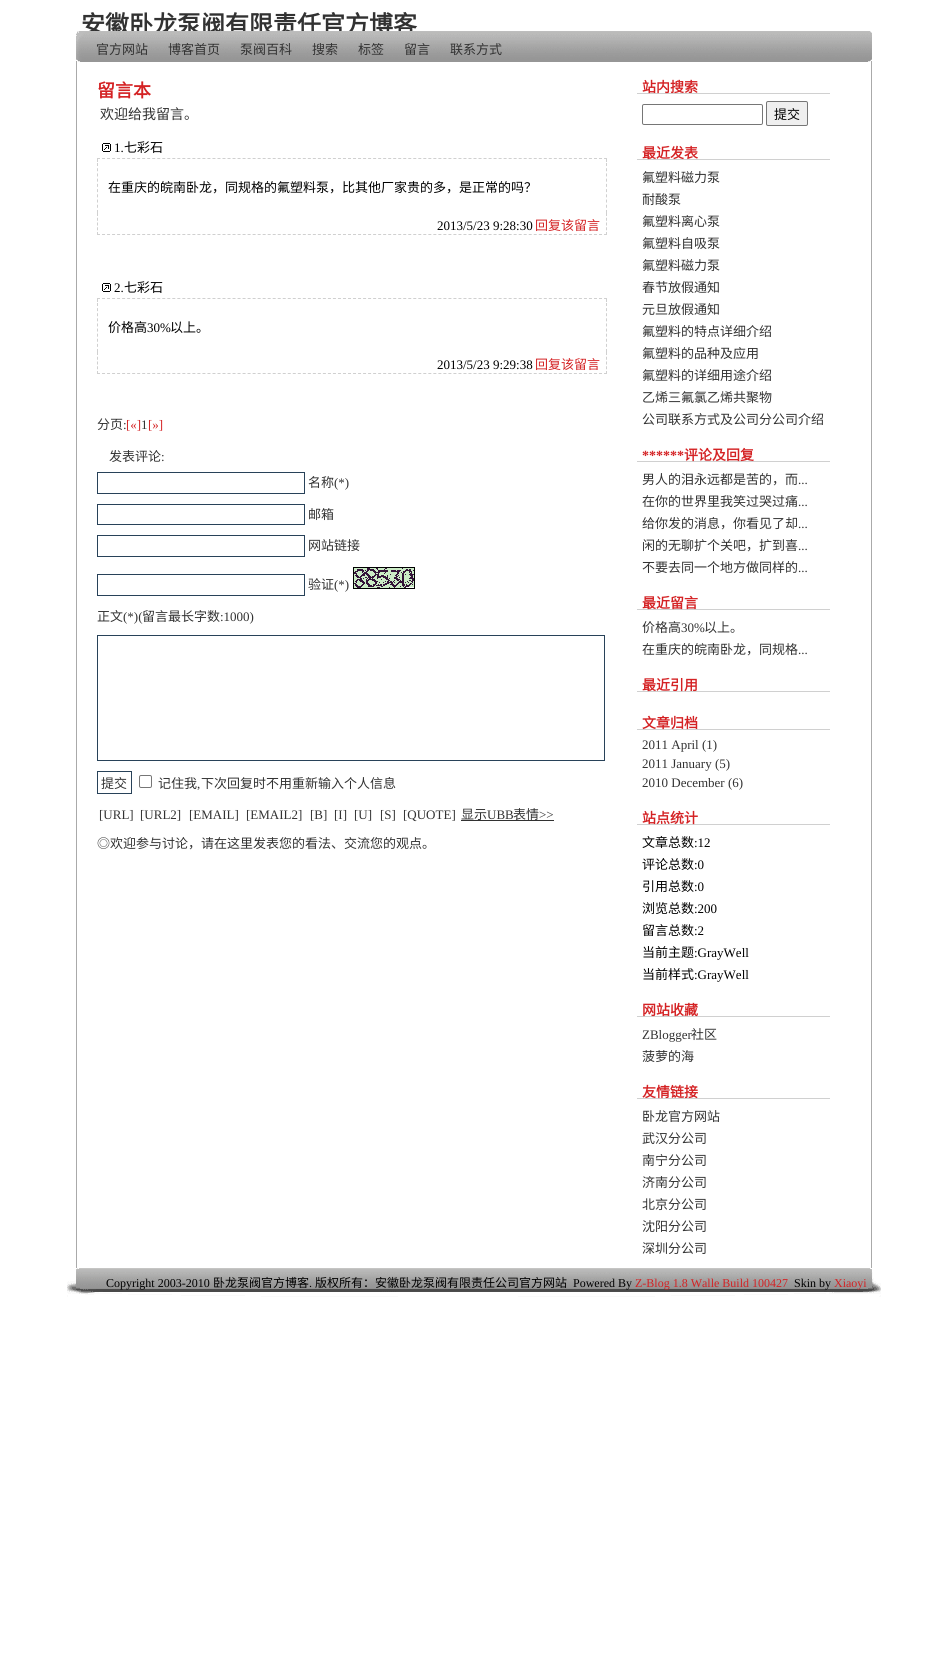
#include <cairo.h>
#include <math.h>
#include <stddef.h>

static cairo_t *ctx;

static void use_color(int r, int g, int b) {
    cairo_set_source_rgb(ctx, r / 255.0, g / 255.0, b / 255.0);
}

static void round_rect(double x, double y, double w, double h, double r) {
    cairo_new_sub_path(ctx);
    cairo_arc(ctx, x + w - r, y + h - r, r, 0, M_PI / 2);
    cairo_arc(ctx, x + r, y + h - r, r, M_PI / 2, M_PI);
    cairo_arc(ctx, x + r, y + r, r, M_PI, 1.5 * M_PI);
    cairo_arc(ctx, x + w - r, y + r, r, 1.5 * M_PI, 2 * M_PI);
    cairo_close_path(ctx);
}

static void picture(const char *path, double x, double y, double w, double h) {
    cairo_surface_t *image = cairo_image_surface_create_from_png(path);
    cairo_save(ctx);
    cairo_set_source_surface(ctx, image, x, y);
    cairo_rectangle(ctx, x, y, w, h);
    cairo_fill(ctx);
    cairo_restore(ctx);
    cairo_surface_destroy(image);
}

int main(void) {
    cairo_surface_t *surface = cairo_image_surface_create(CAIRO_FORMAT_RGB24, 929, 1656);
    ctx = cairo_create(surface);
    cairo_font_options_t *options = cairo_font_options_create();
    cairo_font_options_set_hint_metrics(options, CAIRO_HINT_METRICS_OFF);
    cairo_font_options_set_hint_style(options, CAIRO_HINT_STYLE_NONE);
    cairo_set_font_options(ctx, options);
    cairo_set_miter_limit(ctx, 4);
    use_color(255, 255, 255);
    cairo_paint(ctx);
    cairo_select_font_face(ctx, "Noto Sans CJK SC", CAIRO_FONT_SLANT_NORMAL, CAIRO_FONT_WEIGHT_BOLD);
    cairo_set_font_size(ctx, 24);
    use_color(50, 50, 50);
    cairo_move_to(ctx, 81, 33);
    cairo_show_text(ctx, "安徽卧龙泵阀有限责任官方博客");
    picture("img1.png", 76, 31, 796, 31);
    cairo_select_font_face(ctx, "Noto Sans CJK SC", CAIRO_FONT_SLANT_NORMAL, CAIRO_FONT_WEIGHT_NORMAL);
    cairo_set_font_size(ctx, 13);
    cairo_move_to(ctx, 96, 54);
    cairo_show_text(ctx, "官方网站");
    cairo_move_to(ctx, 168, 54);
    cairo_show_text(ctx, "博客首页");
    cairo_move_to(ctx, 240, 54);
    cairo_show_text(ctx, "泵阀百科");
    cairo_move_to(ctx, 312, 54);
    cairo_show_text(ctx, "搜索");
    cairo_move_to(ctx, 358, 54);
    cairo_show_text(ctx, "标签");
    cairo_move_to(ctx, 404, 54);
    cairo_show_text(ctx, "留言");
    cairo_move_to(ctx, 450, 54);
    cairo_show_text(ctx, "联系方式");
    use_color(170, 170, 170);
    cairo_rectangle(ctx, 871, 61, 1, 1207);
    cairo_fill(ctx);
    cairo_rectangle(ctx, 76, 61, 1, 1207);
    cairo_fill(ctx);
    cairo_select_font_face(ctx, "Noto Sans CJK SC", CAIRO_FONT_SLANT_NORMAL, CAIRO_FONT_WEIGHT_BOLD);
    cairo_set_font_size(ctx, 18);
    use_color(212, 34, 36);
    cairo_move_to(ctx, 97, 97);
    cairo_show_text(ctx, "留言本");
    cairo_select_font_face(ctx, "Noto Sans CJK SC", CAIRO_FONT_SLANT_NORMAL, CAIRO_FONT_WEIGHT_NORMAL);
    cairo_set_font_size(ctx, 14);
    use_color(50, 50, 50);
    cairo_move_to(ctx, 100, 119);
    cairo_show_text(ctx, "欢迎给我留言。");
    cairo_new_path(ctx);
    cairo_move_to(ctx, 97, 158.5);
    cairo_line_to(ctx, 607, 158.5);
    use_color(208, 208, 208);
    cairo_set_line_width(ctx, 1);
    cairo_set_dash(ctx, (double[]){3, 2.02}, 2, 0);
    cairo_stroke(ctx);
    picture("img2.png", 102, 143, 9, 9);
    cairo_select_font_face(ctx, "Liberation Serif", CAIRO_FONT_SLANT_NORMAL, CAIRO_FONT_WEIGHT_NORMAL);
    cairo_set_font_size(ctx, 13);
    use_color(0, 0, 0);
    cairo_move_to(ctx, 114, 152);
    cairo_show_text(ctx, "1.");
    cairo_select_font_face(ctx, "Noto Sans CJK SC", CAIRO_FONT_SLANT_NORMAL, CAIRO_FONT_WEIGHT_NORMAL);
    cairo_move_to(ctx, 124, 152);
    cairo_show_text(ctx, "七彩石");
    cairo_new_path(ctx);
    cairo_move_to(ctx, 606.5, 159);
    cairo_line_to(ctx, 606.5, 162);
    use_color(208, 208, 208);
    cairo_set_dash(ctx, NULL, 0, 0);
    cairo_stroke(ctx);
    cairo_new_path(ctx);
    cairo_move_to(ctx, 97.5, 159);
    cairo_line_to(ctx, 97.5, 162);
    cairo_stroke(ctx);
    cairo_new_path(ctx);
    cairo_move_to(ctx, 606.5, 163);
    cairo_line_to(ctx, 606.5, 213);
    cairo_set_dash(ctx, (double[]){3, 2.22}, 2, 0);
    cairo_stroke(ctx);
    cairo_new_path(ctx);
    cairo_move_to(ctx, 97.5, 163);
    cairo_line_to(ctx, 97.5, 213);
    cairo_stroke(ctx);
    use_color(0, 0, 0);
    cairo_move_to(ctx, 108, 192);
    cairo_show_text(ctx, "在重庆的皖南卧龙，同规格的氟塑料泵，比其他厂家贵的多，是正常的吗？");
    cairo_new_path(ctx);
    cairo_move_to(ctx, 606.5, 213);
    cairo_line_to(ctx, 606.5, 235);
    use_color(208, 208, 208);
    cairo_set_dash(ctx, (double[]){3, 1.75}, 2, 0);
    cairo_stroke(ctx);
    cairo_new_path(ctx);
    cairo_move_to(ctx, 97, 234.5);
    cairo_line_to(ctx, 607, 234.5);
    cairo_set_dash(ctx, (double[]){3, 2.02}, 2, 0);
    cairo_stroke(ctx);
    cairo_new_path(ctx);
    cairo_move_to(ctx, 97.5, 213);
    cairo_line_to(ctx, 97.5, 235);
    cairo_set_dash(ctx, (double[]){3, 1.75}, 2, 0);
    cairo_stroke(ctx);
    cairo_select_font_face(ctx, "Liberation Serif", CAIRO_FONT_SLANT_NORMAL, CAIRO_FONT_WEIGHT_NORMAL);
    use_color(0, 0, 0);
    cairo_move_to(ctx, 437, 230);
    cairo_show_text(ctx, "2013/5/23 9:28:30");
    cairo_select_font_face(ctx, "Noto Sans CJK SC", CAIRO_FONT_SLANT_NORMAL, CAIRO_FONT_WEIGHT_NORMAL);
    use_color(212, 34, 36);
    cairo_move_to(ctx, 535, 230);
    cairo_show_text(ctx, "回复该留言");
    cairo_new_path(ctx);
    cairo_move_to(ctx, 97, 298.5);
    cairo_line_to(ctx, 607, 298.5);
    use_color(208, 208, 208);
    cairo_set_dash(ctx, (double[]){3, 2.02}, 2, 0);
    cairo_stroke(ctx);
    picture("img2.png", 102, 283, 9, 9);
    cairo_select_font_face(ctx, "Liberation Serif", CAIRO_FONT_SLANT_NORMAL, CAIRO_FONT_WEIGHT_NORMAL);
    use_color(0, 0, 0);
    cairo_move_to(ctx, 114, 292);
    cairo_show_text(ctx, "2.");
    cairo_select_font_face(ctx, "Noto Sans CJK SC", CAIRO_FONT_SLANT_NORMAL, CAIRO_FONT_WEIGHT_NORMAL);
    cairo_move_to(ctx, 124, 292);
    cairo_show_text(ctx, "七彩石");
    cairo_new_path(ctx);
    cairo_move_to(ctx, 606.5, 299);
    cairo_line_to(ctx, 606.5, 302);
    use_color(208, 208, 208);
    cairo_set_dash(ctx, NULL, 0, 0);
    cairo_stroke(ctx);
    cairo_new_path(ctx);
    cairo_move_to(ctx, 97.5, 299);
    cairo_line_to(ctx, 97.5, 302);
    cairo_stroke(ctx);
    cairo_new_path(ctx);
    cairo_move_to(ctx, 606.5, 303);
    cairo_line_to(ctx, 606.5, 352);
    cairo_set_dash(ctx, (double[]){3, 2.11}, 2, 0);
    cairo_stroke(ctx);
    cairo_new_path(ctx);
    cairo_move_to(ctx, 97.5, 303);
    cairo_line_to(ctx, 97.5, 352);
    cairo_stroke(ctx);
    use_color(0, 0, 0);
    cairo_move_to(ctx, 108, 332);
    cairo_show_text(ctx, "价格高");
    cairo_select_font_face(ctx, "Liberation Serif", CAIRO_FONT_SLANT_NORMAL, CAIRO_FONT_WEIGHT_NORMAL);
    cairo_move_to(ctx, 147, 332);
    cairo_show_text(ctx, "30%");
    cairo_select_font_face(ctx, "Noto Sans CJK SC", CAIRO_FONT_SLANT_NORMAL, CAIRO_FONT_WEIGHT_NORMAL);
    cairo_move_to(ctx, 170, 332);
    cairo_show_text(ctx, "以上。");
    cairo_new_path(ctx);
    cairo_move_to(ctx, 606.5, 352);
    cairo_line_to(ctx, 606.5, 374);
    use_color(208, 208, 208);
    cairo_set_dash(ctx, (double[]){3, 1.75}, 2, 0);
    cairo_stroke(ctx);
    cairo_new_path(ctx);
    cairo_move_to(ctx, 97, 373.5);
    cairo_line_to(ctx, 607, 373.5);
    cairo_set_dash(ctx, (double[]){3, 2.02}, 2, 0);
    cairo_stroke(ctx);
    cairo_new_path(ctx);
    cairo_move_to(ctx, 97.5, 352);
    cairo_line_to(ctx, 97.5, 374);
    cairo_set_dash(ctx, (double[]){3, 1.75}, 2, 0);
    cairo_stroke(ctx);
    cairo_select_font_face(ctx, "Liberation Serif", CAIRO_FONT_SLANT_NORMAL, CAIRO_FONT_WEIGHT_NORMAL);
    use_color(0, 0, 0);
    cairo_move_to(ctx, 437, 369);
    cairo_show_text(ctx, "2013/5/23 9:29:38");
    cairo_select_font_face(ctx, "Noto Sans CJK SC", CAIRO_FONT_SLANT_NORMAL, CAIRO_FONT_WEIGHT_NORMAL);
    use_color(212, 34, 36);
    cairo_move_to(ctx, 535, 369);
    cairo_show_text(ctx, "回复该留言");
    use_color(50, 50, 50);
    cairo_move_to(ctx, 97, 429);
    cairo_show_text(ctx, "分页");
    cairo_select_font_face(ctx, "Liberation Serif", CAIRO_FONT_SLANT_NORMAL, CAIRO_FONT_WEIGHT_NORMAL);
    cairo_move_to(ctx, 123, 429);
    cairo_show_text(ctx, ":");
    use_color(212, 34, 36);
    cairo_move_to(ctx, 126, 429);
    cairo_show_text(ctx, "[«]");
    use_color(50, 50, 50);
    cairo_move_to(ctx, 141, 429);
    cairo_show_text(ctx, "1");
    use_color(212, 34, 36);
    cairo_move_to(ctx, 148, 429);
    cairo_show_text(ctx, "[»]");
    cairo_select_font_face(ctx, "Noto Sans CJK SC", CAIRO_FONT_SLANT_NORMAL, CAIRO_FONT_WEIGHT_NORMAL);
    use_color(50, 50, 50);
    cairo_move_to(ctx, 109, 461);
    cairo_show_text(ctx, "发表评论");
    cairo_select_font_face(ctx, "Liberation Serif", CAIRO_FONT_SLANT_NORMAL, CAIRO_FONT_WEIGHT_NORMAL);
    cairo_move_to(ctx, 161, 461);
    cairo_show_text(ctx, ":");
    cairo_rectangle(ctx, 97.5, 472.5, 207, 21);
    use_color(40, 66, 89);
    cairo_set_dash(ctx, NULL, 0, 0);
    cairo_stroke(ctx);
    cairo_select_font_face(ctx, "Noto Sans CJK SC", CAIRO_FONT_SLANT_NORMAL, CAIRO_FONT_WEIGHT_NORMAL);
    use_color(50, 50, 50);
    cairo_move_to(ctx, 308, 487);
    cairo_show_text(ctx, "名称");
    cairo_select_font_face(ctx, "Liberation Serif", CAIRO_FONT_SLANT_NORMAL, CAIRO_FONT_WEIGHT_NORMAL);
    cairo_move_to(ctx, 334, 487);
    cairo_show_text(ctx, "(*)");
    cairo_rectangle(ctx, 97.5, 504.5, 207, 20);
    use_color(40, 66, 89);
    cairo_stroke(ctx);
    cairo_select_font_face(ctx, "Noto Sans CJK SC", CAIRO_FONT_SLANT_NORMAL, CAIRO_FONT_WEIGHT_NORMAL);
    use_color(50, 50, 50);
    cairo_move_to(ctx, 308, 519);
    cairo_show_text(ctx, "邮箱");
    cairo_rectangle(ctx, 97.5, 535.5, 207, 21);
    use_color(40, 66, 89);
    cairo_stroke(ctx);
    use_color(50, 50, 50);
    cairo_move_to(ctx, 308, 550);
    cairo_show_text(ctx, "网站链接");
    cairo_rectangle(ctx, 353.5, 567.5, 61, 21);
    use_color(0, 0, 0);
    cairo_stroke(ctx);
    cairo_rectangle(ctx, 97.5, 574.5, 207, 21);
    use_color(40, 66, 89);
    cairo_stroke(ctx);
    use_color(50, 50, 50);
    cairo_move_to(ctx, 308, 589);
    cairo_show_text(ctx, "验证");
    cairo_select_font_face(ctx, "Liberation Serif", CAIRO_FONT_SLANT_NORMAL, CAIRO_FONT_WEIGHT_NORMAL);
    cairo_move_to(ctx, 334, 589);
    cairo_show_text(ctx, "(*)");
    picture("img3.png", 354, 568, 60, 20);
    cairo_select_font_face(ctx, "Noto Sans CJK SC", CAIRO_FONT_SLANT_NORMAL, CAIRO_FONT_WEIGHT_NORMAL);
    cairo_move_to(ctx, 97, 621);
    cairo_show_text(ctx, "正文");
    cairo_select_font_face(ctx, "Liberation Serif", CAIRO_FONT_SLANT_NORMAL, CAIRO_FONT_WEIGHT_NORMAL);
    cairo_move_to(ctx, 123, 621);
    cairo_show_text(ctx, "(*)(");
    cairo_select_font_face(ctx, "Noto Sans CJK SC", CAIRO_FONT_SLANT_NORMAL, CAIRO_FONT_WEIGHT_NORMAL);
    cairo_move_to(ctx, 142, 621);
    cairo_show_text(ctx, "留言最长字数");
    cairo_select_font_face(ctx, "Liberation Serif", CAIRO_FONT_SLANT_NORMAL, CAIRO_FONT_WEIGHT_NORMAL);
    cairo_move_to(ctx, 220, 621);
    cairo_show_text(ctx, ":1000)");
    cairo_rectangle(ctx, 97.5, 635.5, 507, 125);
    use_color(40, 66, 89);
    cairo_stroke(ctx);
    cairo_rectangle(ctx, 97.5, 771.5, 34, 22);
    cairo_stroke(ctx);
    cairo_select_font_face(ctx, "Noto Sans CJK SC", CAIRO_FONT_SLANT_NORMAL, CAIRO_FONT_WEIGHT_NORMAL);
    use_color(50, 50, 50);
    cairo_move_to(ctx, 101, 788);
    cairo_show_text(ctx, "提交");
    round_rect(139.5, 775.5, 12, 12, 1.5);
    use_color(118, 118, 118);
    cairo_stroke(ctx);
    use_color(50, 50, 50);
    cairo_move_to(ctx, 158, 788);
    cairo_show_text(ctx, "记住我");
    cairo_select_font_face(ctx, "Liberation Serif", CAIRO_FONT_SLANT_NORMAL, CAIRO_FONT_WEIGHT_NORMAL);
    cairo_move_to(ctx, 197, 788);
    cairo_show_text(ctx, ",");
    cairo_select_font_face(ctx, "Noto Sans CJK SC", CAIRO_FONT_SLANT_NORMAL, CAIRO_FONT_WEIGHT_NORMAL);
    cairo_move_to(ctx, 201, 788);
    cairo_show_text(ctx, "下次回复时不用重新输入个人信息");
    cairo_select_font_face(ctx, "Liberation Serif", CAIRO_FONT_SLANT_NORMAL, CAIRO_FONT_WEIGHT_NORMAL);
    cairo_move_to(ctx, 99, 819);
    cairo_show_text(ctx, "[URL]");
    cairo_move_to(ctx, 140, 819);
    cairo_show_text(ctx, "[URL2]");
    cairo_move_to(ctx, 189, 819);
    cairo_show_text(ctx, "[EMAIL]");
    cairo_move_to(ctx, 246, 819);
    cairo_show_text(ctx, "[EMAIL2]");
    cairo_move_to(ctx, 310, 819);
    cairo_show_text(ctx, "[B]");
    cairo_move_to(ctx, 334, 819);
    cairo_show_text(ctx, "[I]");
    cairo_move_to(ctx, 354, 819);
    cairo_show_text(ctx, "[U]");
    cairo_move_to(ctx, 380, 819);
    cairo_show_text(ctx, "[S]");
    cairo_move_to(ctx, 403, 819);
    cairo_show_text(ctx, "[QUOTE]");
    cairo_select_font_face(ctx, "Noto Sans CJK SC", CAIRO_FONT_SLANT_NORMAL, CAIRO_FONT_WEIGHT_NORMAL);
    cairo_move_to(ctx, 461, 819);
    cairo_show_text(ctx, "显示");
    cairo_select_font_face(ctx, "Liberation Serif", CAIRO_FONT_SLANT_NORMAL, CAIRO_FONT_WEIGHT_NORMAL);
    cairo_move_to(ctx, 487, 819);
    cairo_show_text(ctx, "UBB");
    cairo_rectangle(ctx, 461, 820, 93, 1);
    cairo_fill(ctx);
    cairo_select_font_face(ctx, "Noto Sans CJK SC", CAIRO_FONT_SLANT_NORMAL, CAIRO_FONT_WEIGHT_NORMAL);
    cairo_move_to(ctx, 513, 819);
    cairo_show_text(ctx, "表情");
    cairo_select_font_face(ctx, "Liberation Serif", CAIRO_FONT_SLANT_NORMAL, CAIRO_FONT_WEIGHT_NORMAL);
    cairo_move_to(ctx, 539, 819);
    cairo_show_text(ctx, ">>");
    cairo_select_font_face(ctx, "Noto Sans CJK SC", CAIRO_FONT_SLANT_NORMAL, CAIRO_FONT_WEIGHT_NORMAL);
    cairo_move_to(ctx, 97, 848);
    cairo_show_text(ctx, "◎欢迎参与讨论，请在这里发表您的看法、交流您的观点。");
    use_color(208, 208, 208);
    cairo_rectangle(ctx, 637, 93, 193, 1);
    cairo_fill(ctx);
    cairo_select_font_face(ctx, "Noto Sans CJK SC", CAIRO_FONT_SLANT_NORMAL, CAIRO_FONT_WEIGHT_BOLD);
    cairo_set_font_size(ctx, 14);
    use_color(212, 34, 36);
    cairo_move_to(ctx, 642, 92);
    cairo_show_text(ctx, "站内搜索");
    round_rect(642.5, 104.5, 120, 20, 1.5);
    use_color(118, 118, 118);
    cairo_stroke(ctx);
    use_color(239, 239, 239);
    round_rect(766.5, 101.5, 41, 24, 1.5);
    cairo_fill_preserve(ctx);
    use_color(118, 118, 118);
    cairo_stroke(ctx);
    cairo_select_font_face(ctx, "Noto Sans CJK SC", CAIRO_FONT_SLANT_NORMAL, CAIRO_FONT_WEIGHT_NORMAL);
    cairo_set_font_size(ctx, 13);
    use_color(0, 0, 0);
    cairo_move_to(ctx, 774, 119);
    cairo_show_text(ctx, "提交");
    use_color(208, 208, 208);
    cairo_rectangle(ctx, 637, 159, 193, 1);
    cairo_fill(ctx);
    cairo_select_font_face(ctx, "Noto Sans CJK SC", CAIRO_FONT_SLANT_NORMAL, CAIRO_FONT_WEIGHT_BOLD);
    cairo_set_font_size(ctx, 14);
    use_color(212, 34, 36);
    cairo_move_to(ctx, 642, 158);
    cairo_show_text(ctx, "最近发表");
    cairo_select_font_face(ctx, "Noto Sans CJK SC", CAIRO_FONT_SLANT_NORMAL, CAIRO_FONT_WEIGHT_NORMAL);
    cairo_set_font_size(ctx, 13);
    use_color(50, 50, 50);
    cairo_move_to(ctx, 642, 182);
    cairo_show_text(ctx, "氟塑料磁力泵");
    cairo_move_to(ctx, 642, 204);
    cairo_show_text(ctx, "耐酸泵");
    cairo_move_to(ctx, 642, 226);
    cairo_show_text(ctx, "氟塑料离心泵");
    cairo_move_to(ctx, 642, 248);
    cairo_show_text(ctx, "氟塑料自吸泵");
    cairo_move_to(ctx, 642, 270);
    cairo_show_text(ctx, "氟塑料磁力泵");
    cairo_move_to(ctx, 642, 292);
    cairo_show_text(ctx, "春节放假通知");
    cairo_move_to(ctx, 642, 314);
    cairo_show_text(ctx, "元旦放假通知");
    cairo_move_to(ctx, 642, 336);
    cairo_show_text(ctx, "氟塑料的特点详细介绍");
    cairo_move_to(ctx, 642, 358);
    cairo_show_text(ctx, "氟塑料的品种及应用");
    cairo_move_to(ctx, 642, 380);
    cairo_show_text(ctx, "氟塑料的详细用途介绍");
    cairo_move_to(ctx, 642, 402);
    cairo_show_text(ctx, "乙烯三氟氯乙烯共聚物");
    cairo_move_to(ctx, 642, 424);
    cairo_show_text(ctx, "公司联系方式及公司分公司介绍");
    cairo_select_font_face(ctx, "Liberation Serif", CAIRO_FONT_SLANT_NORMAL, CAIRO_FONT_WEIGHT_BOLD);
    cairo_set_font_size(ctx, 14);
    use_color(212, 34, 36);
    cairo_move_to(ctx, 642, 460);
    cairo_show_text(ctx, "******");
    use_color(208, 208, 208);
    cairo_rectangle(ctx, 637, 461, 193, 1);
    cairo_fill(ctx);
    cairo_select_font_face(ctx, "Noto Sans CJK SC", CAIRO_FONT_SLANT_NORMAL, CAIRO_FONT_WEIGHT_BOLD);
    use_color(212, 34, 36);
    cairo_move_to(ctx, 684, 460);
    cairo_show_text(ctx, "评论及回复");
    cairo_select_font_face(ctx, "Noto Sans CJK SC", CAIRO_FONT_SLANT_NORMAL, CAIRO_FONT_WEIGHT_NORMAL);
    cairo_set_font_size(ctx, 13);
    use_color(50, 50, 50);
    cairo_move_to(ctx, 642, 484);
    cairo_show_text(ctx, "男人的泪永远都是苦的，而");
    cairo_select_font_face(ctx, "Liberation Serif", CAIRO_FONT_SLANT_NORMAL, CAIRO_FONT_WEIGHT_NORMAL);
    cairo_move_to(ctx, 798, 484);
    cairo_show_text(ctx, "...");
    cairo_select_font_face(ctx, "Noto Sans CJK SC", CAIRO_FONT_SLANT_NORMAL, CAIRO_FONT_WEIGHT_NORMAL);
    cairo_move_to(ctx, 642, 506);
    cairo_show_text(ctx, "在你的世界里我笑过哭过痛");
    cairo_select_font_face(ctx, "Liberation Serif", CAIRO_FONT_SLANT_NORMAL, CAIRO_FONT_WEIGHT_NORMAL);
    cairo_move_to(ctx, 798, 506);
    cairo_show_text(ctx, "...");
    cairo_select_font_face(ctx, "Noto Sans CJK SC", CAIRO_FONT_SLANT_NORMAL, CAIRO_FONT_WEIGHT_NORMAL);
    cairo_move_to(ctx, 642, 528);
    cairo_show_text(ctx, "给你发的消息，你看见了却");
    cairo_select_font_face(ctx, "Liberation Serif", CAIRO_FONT_SLANT_NORMAL, CAIRO_FONT_WEIGHT_NORMAL);
    cairo_move_to(ctx, 798, 528);
    cairo_show_text(ctx, "...");
    cairo_select_font_face(ctx, "Noto Sans CJK SC", CAIRO_FONT_SLANT_NORMAL, CAIRO_FONT_WEIGHT_NORMAL);
    cairo_move_to(ctx, 642, 550);
    cairo_show_text(ctx, "闲的无聊扩个关吧，扩到喜");
    cairo_select_font_face(ctx, "Liberation Serif", CAIRO_FONT_SLANT_NORMAL, CAIRO_FONT_WEIGHT_NORMAL);
    cairo_move_to(ctx, 798, 550);
    cairo_show_text(ctx, "...");
    cairo_select_font_face(ctx, "Noto Sans CJK SC", CAIRO_FONT_SLANT_NORMAL, CAIRO_FONT_WEIGHT_NORMAL);
    cairo_move_to(ctx, 642, 572);
    cairo_show_text(ctx, "不要去同一个地方做同样的");
    cairo_select_font_face(ctx, "Liberation Serif", CAIRO_FONT_SLANT_NORMAL, CAIRO_FONT_WEIGHT_NORMAL);
    cairo_move_to(ctx, 798, 572);
    cairo_show_text(ctx, "...");
    use_color(208, 208, 208);
    cairo_rectangle(ctx, 637, 609, 193, 1);
    cairo_fill(ctx);
    cairo_select_font_face(ctx, "Noto Sans CJK SC", CAIRO_FONT_SLANT_NORMAL, CAIRO_FONT_WEIGHT_BOLD);
    cairo_set_font_size(ctx, 14);
    use_color(212, 34, 36);
    cairo_move_to(ctx, 642, 608);
    cairo_show_text(ctx, "最近留言");
    cairo_select_font_face(ctx, "Noto Sans CJK SC", CAIRO_FONT_SLANT_NORMAL, CAIRO_FONT_WEIGHT_NORMAL);
    cairo_set_font_size(ctx, 13);
    use_color(50, 50, 50);
    cairo_move_to(ctx, 642, 632);
    cairo_show_text(ctx, "价格高");
    cairo_select_font_face(ctx, "Liberation Serif", CAIRO_FONT_SLANT_NORMAL, CAIRO_FONT_WEIGHT_NORMAL);
    cairo_move_to(ctx, 681, 632);
    cairo_show_text(ctx, "30%");
    cairo_select_font_face(ctx, "Noto Sans CJK SC", CAIRO_FONT_SLANT_NORMAL, CAIRO_FONT_WEIGHT_NORMAL);
    cairo_move_to(ctx, 704, 632);
    cairo_show_text(ctx, "以上。");
    cairo_move_to(ctx, 642, 654);
    cairo_show_text(ctx, "在重庆的皖南卧龙，同规格");
    cairo_select_font_face(ctx, "Liberation Serif", CAIRO_FONT_SLANT_NORMAL, CAIRO_FONT_WEIGHT_NORMAL);
    cairo_move_to(ctx, 798, 654);
    cairo_show_text(ctx, "...");
    use_color(208, 208, 208);
    cairo_rectangle(ctx, 637, 691, 193, 1);
    cairo_fill(ctx);
    cairo_select_font_face(ctx, "Noto Sans CJK SC", CAIRO_FONT_SLANT_NORMAL, CAIRO_FONT_WEIGHT_BOLD);
    cairo_set_font_size(ctx, 14);
    use_color(212, 34, 36);
    cairo_move_to(ctx, 642, 690);
    cairo_show_text(ctx, "最近引用");
    use_color(208, 208, 208);
    cairo_rectangle(ctx, 637, 729, 193, 1);
    cairo_fill(ctx);
    use_color(212, 34, 36);
    cairo_move_to(ctx, 642, 728);
    cairo_show_text(ctx, "文章归档");
    cairo_select_font_face(ctx, "Liberation Serif", CAIRO_FONT_SLANT_NORMAL, CAIRO_FONT_WEIGHT_NORMAL);
    cairo_set_font_size(ctx, 13);
    use_color(50, 50, 50);
    cairo_move_to(ctx, 642, 749);
    cairo_show_text(ctx, "2011 April (1)");
    cairo_move_to(ctx, 642, 768);
    cairo_show_text(ctx, "2011 January (5)");
    cairo_move_to(ctx, 642, 787);
    cairo_show_text(ctx, "2010 December (6)");
    use_color(208, 208, 208);
    cairo_rectangle(ctx, 637, 824, 193, 1);
    cairo_fill(ctx);
    cairo_select_font_face(ctx, "Noto Sans CJK SC", CAIRO_FONT_SLANT_NORMAL, CAIRO_FONT_WEIGHT_BOLD);
    cairo_set_font_size(ctx, 14);
    use_color(212, 34, 36);
    cairo_move_to(ctx, 642, 823);
    cairo_show_text(ctx, "站点统计");
    cairo_select_font_face(ctx, "Noto Sans CJK SC", CAIRO_FONT_SLANT_NORMAL, CAIRO_FONT_WEIGHT_NORMAL);
    cairo_set_font_size(ctx, 13);
    use_color(0, 0, 0);
    cairo_move_to(ctx, 642, 847);
    cairo_show_text(ctx, "文章总数");
    cairo_select_font_face(ctx, "Liberation Serif", CAIRO_FONT_SLANT_NORMAL, CAIRO_FONT_WEIGHT_NORMAL);
    cairo_move_to(ctx, 694, 847);
    cairo_show_text(ctx, ":12");
    cairo_select_font_face(ctx, "Noto Sans CJK SC", CAIRO_FONT_SLANT_NORMAL, CAIRO_FONT_WEIGHT_NORMAL);
    cairo_move_to(ctx, 642, 869);
    cairo_show_text(ctx, "评论总数");
    cairo_select_font_face(ctx, "Liberation Serif", CAIRO_FONT_SLANT_NORMAL, CAIRO_FONT_WEIGHT_NORMAL);
    cairo_move_to(ctx, 694, 869);
    cairo_show_text(ctx, ":0");
    cairo_select_font_face(ctx, "Noto Sans CJK SC", CAIRO_FONT_SLANT_NORMAL, CAIRO_FONT_WEIGHT_NORMAL);
    cairo_move_to(ctx, 642, 891);
    cairo_show_text(ctx, "引用总数");
    cairo_select_font_face(ctx, "Liberation Serif", CAIRO_FONT_SLANT_NORMAL, CAIRO_FONT_WEIGHT_NORMAL);
    cairo_move_to(ctx, 694, 891);
    cairo_show_text(ctx, ":0");
    cairo_select_font_face(ctx, "Noto Sans CJK SC", CAIRO_FONT_SLANT_NORMAL, CAIRO_FONT_WEIGHT_NORMAL);
    cairo_move_to(ctx, 642, 913);
    cairo_show_text(ctx, "浏览总数");
    cairo_select_font_face(ctx, "Liberation Serif", CAIRO_FONT_SLANT_NORMAL, CAIRO_FONT_WEIGHT_NORMAL);
    cairo_move_to(ctx, 694, 913);
    cairo_show_text(ctx, ":200");
    cairo_select_font_face(ctx, "Noto Sans CJK SC", CAIRO_FONT_SLANT_NORMAL, CAIRO_FONT_WEIGHT_NORMAL);
    cairo_move_to(ctx, 642, 935);
    cairo_show_text(ctx, "留言总数");
    cairo_select_font_face(ctx, "Liberation Serif", CAIRO_FONT_SLANT_NORMAL, CAIRO_FONT_WEIGHT_NORMAL);
    cairo_move_to(ctx, 694, 935);
    cairo_show_text(ctx, ":2");
    cairo_select_font_face(ctx, "Noto Sans CJK SC", CAIRO_FONT_SLANT_NORMAL, CAIRO_FONT_WEIGHT_NORMAL);
    cairo_move_to(ctx, 642, 957);
    cairo_show_text(ctx, "当前主题");
    cairo_select_font_face(ctx, "Liberation Serif", CAIRO_FONT_SLANT_NORMAL, CAIRO_FONT_WEIGHT_NORMAL);
    cairo_move_to(ctx, 694, 957);
    cairo_show_text(ctx, ":GrayWell");
    cairo_select_font_face(ctx, "Noto Sans CJK SC", CAIRO_FONT_SLANT_NORMAL, CAIRO_FONT_WEIGHT_NORMAL);
    cairo_move_to(ctx, 642, 979);
    cairo_show_text(ctx, "当前样式");
    cairo_select_font_face(ctx, "Liberation Serif", CAIRO_FONT_SLANT_NORMAL, CAIRO_FONT_WEIGHT_NORMAL);
    cairo_move_to(ctx, 694, 979);
    cairo_show_text(ctx, ":GrayWell");
    use_color(208, 208, 208);
    cairo_rectangle(ctx, 637, 1016, 193, 1);
    cairo_fill(ctx);
    cairo_select_font_face(ctx, "Noto Sans CJK SC", CAIRO_FONT_SLANT_NORMAL, CAIRO_FONT_WEIGHT_BOLD);
    cairo_set_font_size(ctx, 14);
    use_color(212, 34, 36);
    cairo_move_to(ctx, 642, 1015);
    cairo_show_text(ctx, "网站收藏");
    cairo_select_font_face(ctx, "Liberation Serif", CAIRO_FONT_SLANT_NORMAL, CAIRO_FONT_WEIGHT_NORMAL);
    cairo_set_font_size(ctx, 13);
    use_color(50, 50, 50);
    cairo_move_to(ctx, 642, 1039);
    cairo_show_text(ctx, "ZBlogger");
    cairo_select_font_face(ctx, "Noto Sans CJK SC", CAIRO_FONT_SLANT_NORMAL, CAIRO_FONT_WEIGHT_NORMAL);
    cairo_move_to(ctx, 691, 1039);
    cairo_show_text(ctx, "社区");
    cairo_move_to(ctx, 642, 1061);
    cairo_show_text(ctx, "菠萝的海");
    use_color(208, 208, 208);
    cairo_rectangle(ctx, 637, 1098, 193, 1);
    cairo_fill(ctx);
    cairo_select_font_face(ctx, "Noto Sans CJK SC", CAIRO_FONT_SLANT_NORMAL, CAIRO_FONT_WEIGHT_BOLD);
    cairo_set_font_size(ctx, 14);
    use_color(212, 34, 36);
    cairo_move_to(ctx, 642, 1097);
    cairo_show_text(ctx, "友情链接");
    cairo_select_font_face(ctx, "Noto Sans CJK SC", CAIRO_FONT_SLANT_NORMAL, CAIRO_FONT_WEIGHT_NORMAL);
    cairo_set_font_size(ctx, 13);
    use_color(50, 50, 50);
    cairo_move_to(ctx, 642, 1121);
    cairo_show_text(ctx, "卧龙官方网站");
    cairo_move_to(ctx, 642, 1143);
    cairo_show_text(ctx, "武汉分公司");
    cairo_move_to(ctx, 642, 1165);
    cairo_show_text(ctx, "南宁分公司");
    cairo_move_to(ctx, 642, 1187);
    cairo_show_text(ctx, "济南分公司");
    cairo_move_to(ctx, 642, 1209);
    cairo_show_text(ctx, "北京分公司");
    cairo_move_to(ctx, 642, 1231);
    cairo_show_text(ctx, "沈阳分公司");
    cairo_move_to(ctx, 642, 1253);
    cairo_show_text(ctx, "深圳分公司");
    picture("img4.png", 67, 1268, 814, 29);
    cairo_select_font_face(ctx, "Liberation Serif", CAIRO_FONT_SLANT_NORMAL, CAIRO_FONT_WEIGHT_NORMAL);
    cairo_set_font_size(ctx, 12);
    use_color(0, 0, 0);
    cairo_move_to(ctx, 106, 1287);
    cairo_show_text(ctx, "Copyright 2003-2010");
    cairo_select_font_face(ctx, "Noto Sans CJK SC", CAIRO_FONT_SLANT_NORMAL, CAIRO_FONT_WEIGHT_NORMAL);
    cairo_move_to(ctx, 213, 1287);
    cairo_show_text(ctx, "卧龙泵阀官方博客");
    cairo_select_font_face(ctx, "Liberation Serif", CAIRO_FONT_SLANT_NORMAL, CAIRO_FONT_WEIGHT_NORMAL);
    cairo_move_to(ctx, 309, 1287);
    cairo_show_text(ctx, ".");
    cairo_select_font_face(ctx, "Noto Sans CJK SC", CAIRO_FONT_SLANT_NORMAL, CAIRO_FONT_WEIGHT_NORMAL);
    cairo_move_to(ctx, 315, 1287);
    cairo_show_text(ctx, "版权所有：安徽卧龙泵阀有限责任公司官方网站");
    cairo_select_font_face(ctx, "Liberation Serif", CAIRO_FONT_SLANT_NORMAL, CAIRO_FONT_WEIGHT_NORMAL);
    cairo_move_to(ctx, 573, 1287);
    cairo_show_text(ctx, "Powered By");
    use_color(212, 34, 36);
    cairo_move_to(ctx, 635, 1287);
    cairo_show_text(ctx, "Z-Blog 1.8 Walle Build 100427");
    use_color(0, 0, 0);
    cairo_move_to(ctx, 794, 1287);
    cairo_show_text(ctx, "Skin by");
    use_color(212, 34, 36);
    cairo_move_to(ctx, 834, 1287);
    cairo_show_text(ctx, "Xiaoyi");
    cairo_surface_write_to_png(surface, "result.png");
    cairo_font_options_destroy(options);
    cairo_destroy(ctx);
    cairo_surface_destroy(surface);
    return 0;
}
